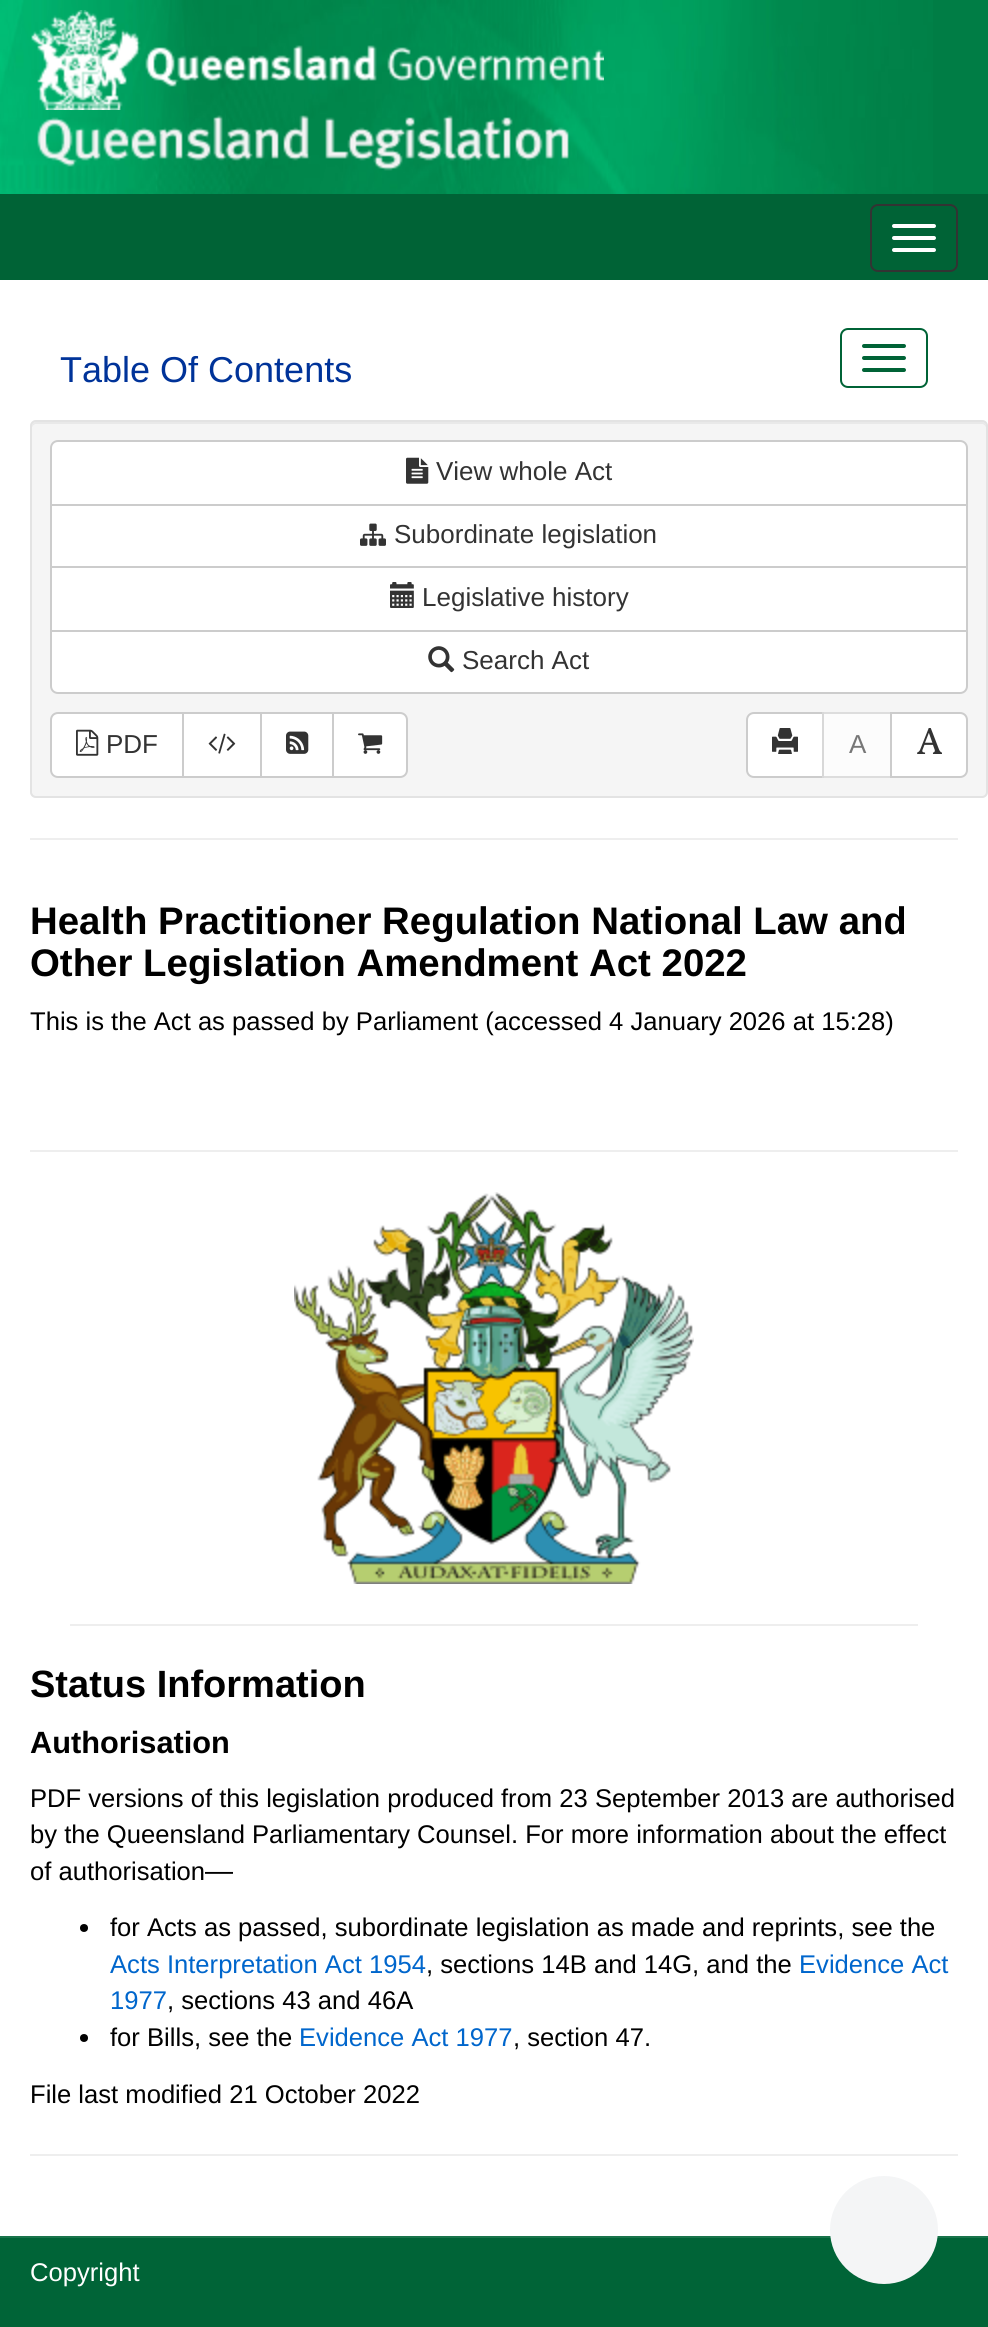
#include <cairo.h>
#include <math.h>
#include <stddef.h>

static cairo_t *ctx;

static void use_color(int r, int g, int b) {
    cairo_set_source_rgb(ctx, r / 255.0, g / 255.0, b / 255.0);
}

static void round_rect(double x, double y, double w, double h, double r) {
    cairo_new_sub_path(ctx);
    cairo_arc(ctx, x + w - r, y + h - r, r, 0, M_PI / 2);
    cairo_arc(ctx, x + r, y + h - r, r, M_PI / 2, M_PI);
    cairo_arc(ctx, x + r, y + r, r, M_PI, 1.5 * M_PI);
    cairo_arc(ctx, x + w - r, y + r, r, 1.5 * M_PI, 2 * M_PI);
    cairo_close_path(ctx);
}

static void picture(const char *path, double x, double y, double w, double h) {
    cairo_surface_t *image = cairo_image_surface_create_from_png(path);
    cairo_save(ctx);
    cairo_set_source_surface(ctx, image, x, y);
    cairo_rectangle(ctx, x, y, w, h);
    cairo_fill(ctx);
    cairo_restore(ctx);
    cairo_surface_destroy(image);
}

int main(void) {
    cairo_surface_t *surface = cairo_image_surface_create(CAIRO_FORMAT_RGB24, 988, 2327);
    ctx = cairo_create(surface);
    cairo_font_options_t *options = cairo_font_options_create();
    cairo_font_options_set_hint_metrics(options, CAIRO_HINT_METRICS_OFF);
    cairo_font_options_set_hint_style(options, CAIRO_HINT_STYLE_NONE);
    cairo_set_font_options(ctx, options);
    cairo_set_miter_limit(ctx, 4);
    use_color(255, 255, 255);
    cairo_paint(ctx);
    use_color(0, 125, 69);
    cairo_rectangle(ctx, 933, 0, 55, 194);
    cairo_fill(ctx);
    picture("img1.png", 0, 0, 933, 194);
    picture("img2.png", 31, 10, 573, 100);
    picture("img3.png", 37, 115, 532, 56);
    use_color(0, 99, 54);
    cairo_rectangle(ctx, 0, 194, 988, 86);
    cairo_fill(ctx);
    round_rect(871, 205, 86, 66, 7);
    use_color(51, 51, 51);
    cairo_stroke(ctx);
    use_color(255, 255, 255);
    round_rect(892, 224, 44, 4, 2);
    cairo_fill(ctx);
    round_rect(892, 236, 44, 4, 2);
    cairo_fill(ctx);
    round_rect(892, 248, 44, 4, 2);
    cairo_fill(ctx);
    cairo_select_font_face(ctx, "Liberation Sans", CAIRO_FONT_SLANT_NORMAL, CAIRO_FONT_WEIGHT_NORMAL);
    cairo_set_font_size(ctx, 36);
    use_color(0, 51, 153);
    cairo_move_to(ctx, 60, 382);
    cairo_show_text(ctx, "Table Of Contents");
    round_rect(841, 329, 86, 58, 7);
    use_color(0, 99, 54);
    cairo_stroke(ctx);
    round_rect(862, 344, 44, 4, 2);
    cairo_fill(ctx);
    round_rect(862, 356, 44, 4, 2);
    cairo_fill(ctx);
    round_rect(862, 368, 44, 4, 2);
    cairo_fill(ctx);
    use_color(245, 245, 245);
    round_rect(30, 420, 958, 378, 6);
    cairo_fill(ctx);
    use_color(233, 233, 233);
    cairo_new_path(ctx);
    cairo_move_to(ctx, 36, 424);
    cairo_line_to(ctx, 982, 424);
    cairo_curve_to(ctx, 984, 424, 986, 426, 986, 428);
    cairo_line_to(ctx, 986, 426);
    cairo_curve_to(ctx, 986, 424, 984, 422, 982, 422);
    cairo_line_to(ctx, 36, 422);
    cairo_curve_to(ctx, 34, 422, 32, 424, 32, 426);
    cairo_line_to(ctx, 32, 428);
    cairo_curve_to(ctx, 32, 426, 34, 424, 36, 424);
    cairo_close_path(ctx);
    cairo_fill(ctx);
    round_rect(31, 421, 956, 376, 5);
    use_color(227, 227, 227);
    cairo_stroke(ctx);
    use_color(255, 255, 255);
    cairo_new_path(ctx);
    cairo_move_to(ctx, 58, 441);
    cairo_line_to(ctx, 960, 441);
    cairo_curve_to(ctx, 964, 441, 967, 444, 967, 448);
    cairo_line_to(ctx, 967, 505);
    cairo_line_to(ctx, 51, 505);
    cairo_line_to(ctx, 51, 448);
    cairo_curve_to(ctx, 51, 444, 54, 441, 58, 441);
    cairo_close_path(ctx);
    cairo_fill_preserve(ctx);
    use_color(204, 204, 204);
    cairo_stroke(ctx);
    picture("img4.png", 406, 457, 23, 27);
    cairo_set_font_size(ctx, 26);
    use_color(51, 51, 51);
    cairo_move_to(ctx, 436, 480);
    cairo_show_text(ctx, "View whole Act");
    use_color(255, 255, 255);
    cairo_rectangle(ctx, 51, 505, 916, 62);
    cairo_fill_preserve(ctx);
    use_color(204, 204, 204);
    cairo_stroke(ctx);
    picture("img5.png", 360, 523, 26, 23);
    use_color(51, 51, 51);
    cairo_move_to(ctx, 394, 543);
    cairo_show_text(ctx, "Subordinate legislation");
    use_color(255, 255, 255);
    cairo_rectangle(ctx, 51, 567, 916, 64);
    cairo_fill_preserve(ctx);
    use_color(204, 204, 204);
    cairo_stroke(ctx);
    picture("img6.png", 390, 582, 24, 26);
    use_color(51, 51, 51);
    cairo_move_to(ctx, 422, 606);
    cairo_show_text(ctx, "Legislative history");
    use_color(255, 255, 255);
    cairo_new_path(ctx);
    cairo_move_to(ctx, 51, 631);
    cairo_line_to(ctx, 967, 631);
    cairo_line_to(ctx, 967, 686);
    cairo_curve_to(ctx, 967, 690, 964, 693, 960, 693);
    cairo_line_to(ctx, 58, 693);
    cairo_curve_to(ctx, 54, 693, 51, 690, 51, 686);
    cairo_close_path(ctx);
    cairo_fill_preserve(ctx);
    use_color(204, 204, 204);
    cairo_stroke(ctx);
    picture("img7.png", 428, 646, 27, 27);
    use_color(51, 51, 51);
    cairo_move_to(ctx, 462, 669);
    cairo_show_text(ctx, "Search Act");
    use_color(255, 255, 255);
    cairo_new_path(ctx);
    cairo_move_to(ctx, 58, 713);
    cairo_line_to(ctx, 183, 713);
    cairo_line_to(ctx, 183, 777);
    cairo_line_to(ctx, 58, 777);
    cairo_curve_to(ctx, 54, 777, 51, 774, 51, 770);
    cairo_line_to(ctx, 51, 720);
    cairo_curve_to(ctx, 51, 716, 54, 713, 58, 713);
    cairo_close_path(ctx);
    cairo_fill_preserve(ctx);
    use_color(204, 204, 204);
    cairo_stroke(ctx);
    picture("img8.png", 76, 729, 23, 27);
    use_color(51, 51, 51);
    cairo_move_to(ctx, 106, 753);
    cairo_show_text(ctx, "PDF");
    use_color(255, 255, 255);
    cairo_rectangle(ctx, 183, 713, 78, 64);
    cairo_fill_preserve(ctx);
    use_color(204, 204, 204);
    cairo_stroke(ctx);
    picture("img9.png", 208, 733, 28, 21);
    use_color(255, 255, 255);
    cairo_rectangle(ctx, 261, 713, 72, 64);
    cairo_fill_preserve(ctx);
    use_color(204, 204, 204);
    cairo_stroke(ctx);
    picture("img10.png", 286, 731, 23, 23);
    use_color(255, 255, 255);
    cairo_new_path(ctx);
    cairo_move_to(ctx, 333, 713);
    cairo_line_to(ctx, 400, 713);
    cairo_curve_to(ctx, 404, 713, 407, 716, 407, 720);
    cairo_line_to(ctx, 407, 770);
    cairo_curve_to(ctx, 407, 774, 404, 777, 400, 777);
    cairo_line_to(ctx, 333, 777);
    cairo_close_path(ctx);
    cairo_fill_preserve(ctx);
    use_color(204, 204, 204);
    cairo_stroke(ctx);
    picture("img11.png", 358, 733, 25, 21);
    use_color(255, 255, 255);
    cairo_new_path(ctx);
    cairo_move_to(ctx, 754, 713);
    cairo_line_to(ctx, 823, 713);
    cairo_line_to(ctx, 823, 777);
    cairo_line_to(ctx, 754, 777);
    cairo_curve_to(ctx, 750, 777, 747, 774, 747, 770);
    cairo_line_to(ctx, 747, 720);
    cairo_curve_to(ctx, 747, 716, 750, 713, 754, 713);
    cairo_close_path(ctx);
    cairo_fill_preserve(ctx);
    use_color(204, 204, 204);
    cairo_stroke(ctx);
    picture("img12.png", 772, 728, 26, 26);
    cairo_set_source_rgba(ctx, 1, 1, 1, 0.65);
    cairo_rectangle(ctx, 822, 712, 68, 66);
    cairo_fill(ctx);
    cairo_rectangle(ctx, 823, 713, 68, 64);
    cairo_set_source_rgba(ctx, 0.8, 0.8, 0.8, 0.65);
    cairo_stroke(ctx);
    use_color(119, 119, 119);
    cairo_move_to(ctx, 849, 753);
    cairo_show_text(ctx, "A");
    use_color(255, 255, 255);
    cairo_new_path(ctx);
    cairo_move_to(ctx, 891, 713);
    cairo_line_to(ctx, 960, 713);
    cairo_curve_to(ctx, 964, 713, 967, 716, 967, 720);
    cairo_line_to(ctx, 967, 770);
    cairo_curve_to(ctx, 967, 774, 964, 777, 960, 777);
    cairo_line_to(ctx, 891, 777);
    cairo_close_path(ctx);
    cairo_fill_preserve(ctx);
    use_color(204, 204, 204);
    cairo_stroke(ctx);
    picture("img13.png", 917, 728, 25, 26);
    use_color(238, 238, 238);
    cairo_rectangle(ctx, 30, 838, 928, 2);
    cairo_fill(ctx);
    cairo_select_font_face(ctx, "Liberation Sans", CAIRO_FONT_SLANT_NORMAL, CAIRO_FONT_WEIGHT_BOLD);
    cairo_set_font_size(ctx, 38.4);
    use_color(0, 0, 0);
    cairo_move_to(ctx, 30, 934);
    cairo_show_text(ctx, "Health Practitioner Regulation National Law and");
    cairo_move_to(ctx, 30, 976);
    cairo_show_text(ctx, "Other Legislation Amendment Act 2022");
    cairo_select_font_face(ctx, "Liberation Sans", CAIRO_FONT_SLANT_NORMAL, CAIRO_FONT_WEIGHT_NORMAL);
    cairo_set_font_size(ctx, 25.6);
    cairo_move_to(ctx, 30, 1030);
    cairo_show_text(ctx, "This is the Act as passed by Parliament (accessed 4 January 2026 at 15:28)");
    use_color(238, 238, 238);
    cairo_rectangle(ctx, 30, 1150, 928, 2);
    cairo_fill(ctx);
    picture("img14.png", 294, 1192, 400, 392);
    cairo_rectangle(ctx, 70, 1624, 848, 2);
    cairo_fill(ctx);
    cairo_select_font_face(ctx, "Liberation Sans", CAIRO_FONT_SLANT_NORMAL, CAIRO_FONT_WEIGHT_BOLD);
    cairo_set_font_size(ctx, 38);
    use_color(0, 0, 0);
    cairo_move_to(ctx, 30, 1697);
    cairo_show_text(ctx, "Status Information");
    cairo_set_font_size(ctx, 30.75);
    cairo_move_to(ctx, 30, 1753);
    cairo_show_text(ctx, "Authorisation");
    cairo_select_font_face(ctx, "Liberation Sans", CAIRO_FONT_SLANT_NORMAL, CAIRO_FONT_WEIGHT_NORMAL);
    cairo_set_font_size(ctx, 25.6);
    cairo_move_to(ctx, 30, 1807);
    cairo_show_text(ctx, "PDF versions of this legislation produced from 23 September 2013 are authorised");
    cairo_move_to(ctx, 30, 1843);
    cairo_show_text(ctx, "by the Queensland Parliamentary Counsel. For more information about the effect");
    cairo_move_to(ctx, 30, 1880);
    cairo_show_text(ctx, "of authorisation");
    cairo_set_font_size(ctx, 28);
    cairo_move_to(ctx, 205, 1880);
    cairo_show_text(ctx, "—");
    cairo_new_path(ctx);
    cairo_arc(ctx, 84, 1928, 4, 0, 2 * M_PI);
    cairo_fill(ctx);
    cairo_set_font_size(ctx, 25.6);
    cairo_move_to(ctx, 110, 1936);
    cairo_show_text(ctx, "for Acts as passed, subordinate legislation as made and reprints, see the");
    use_color(0, 102, 204);
    cairo_move_to(ctx, 110, 1973);
    cairo_show_text(ctx, "Acts Interpretation Act 1954");
    use_color(0, 0, 0);
    cairo_move_to(ctx, 426, 1973);
    cairo_show_text(ctx, ", sections 14B and 14G, and the");
    use_color(0, 102, 204);
    cairo_move_to(ctx, 799, 1973);
    cairo_show_text(ctx, "Evidence Act");
    cairo_move_to(ctx, 110, 2009);
    cairo_show_text(ctx, "1977");
    use_color(0, 0, 0);
    cairo_move_to(ctx, 167, 2009);
    cairo_show_text(ctx, ", sections 43 and 46A");
    cairo_new_path(ctx);
    cairo_arc(ctx, 84, 2038, 4, 0, 2 * M_PI);
    cairo_fill(ctx);
    cairo_move_to(ctx, 110, 2046);
    cairo_show_text(ctx, "for Bills, see the");
    use_color(0, 102, 204);
    cairo_move_to(ctx, 299, 2046);
    cairo_show_text(ctx, "Evidence Act 1977");
    use_color(0, 0, 0);
    cairo_move_to(ctx, 513, 2046);
    cairo_show_text(ctx, ", section 47.");
    cairo_move_to(ctx, 30, 2103);
    cairo_show_text(ctx, "File last modified 21 October 2022");
    use_color(238, 238, 238);
    cairo_rectangle(ctx, 30, 2154, 928, 2);
    cairo_fill(ctx);
    use_color(0, 100, 55);
    cairo_rectangle(ctx, 0, 2238, 988, 89);
    cairo_fill(ctx);
    use_color(26, 116, 75);
    cairo_rectangle(ctx, 0, 2236, 988, 2);
    cairo_fill(ctx);
    use_color(255, 255, 255);
    cairo_move_to(ctx, 30, 2281);
    cairo_show_text(ctx, "Copyright");
    use_color(244, 245, 246);
    cairo_new_path(ctx);
    cairo_arc(ctx, 884, 2230, 54, 0, 2 * M_PI);
    cairo_fill(ctx);
    cairo_surface_write_to_png(surface, "result.png");
    cairo_font_options_destroy(options);
    cairo_destroy(ctx);
    cairo_surface_destroy(surface);
    return 0;
}
